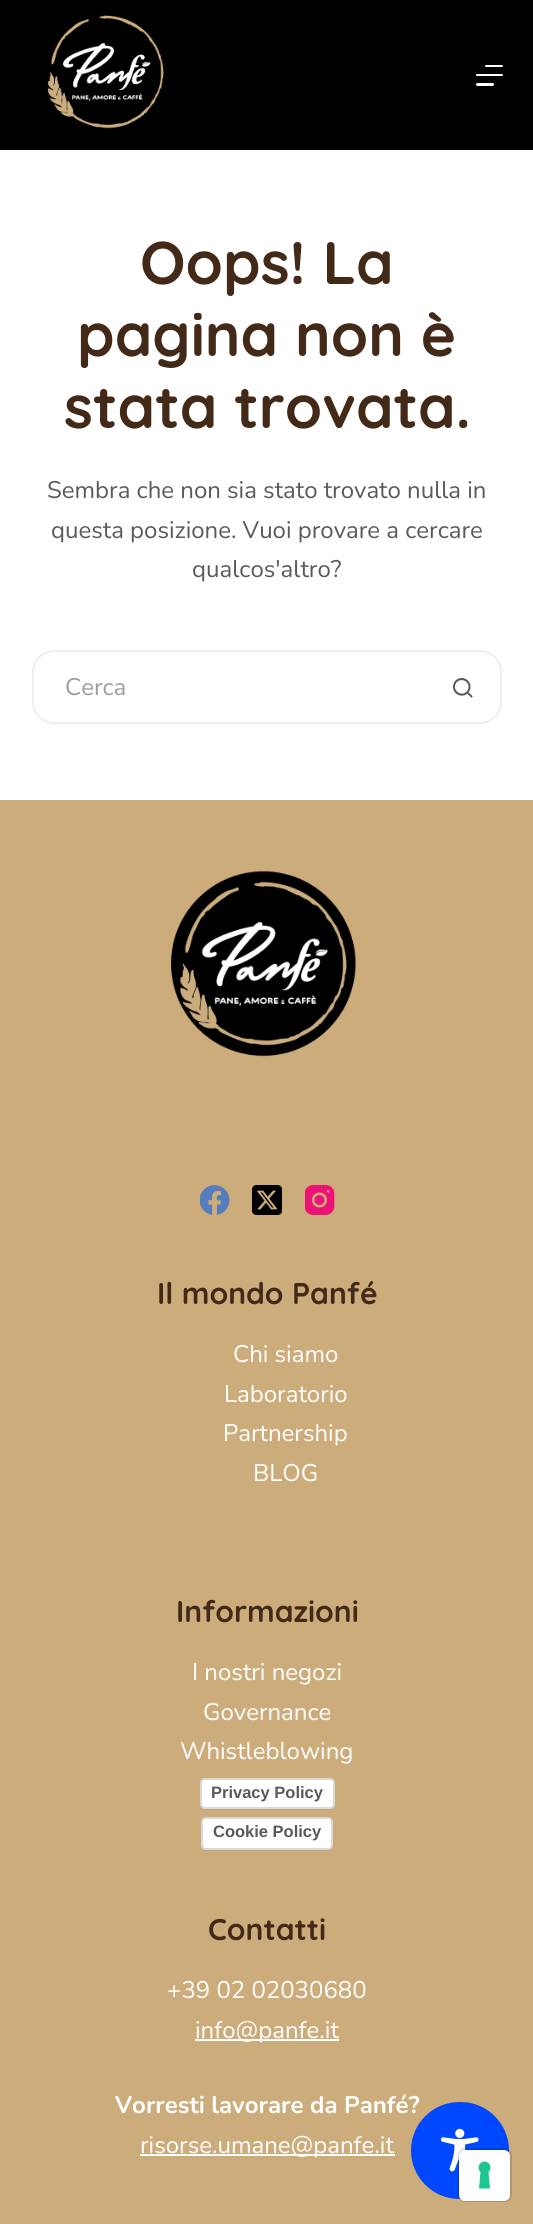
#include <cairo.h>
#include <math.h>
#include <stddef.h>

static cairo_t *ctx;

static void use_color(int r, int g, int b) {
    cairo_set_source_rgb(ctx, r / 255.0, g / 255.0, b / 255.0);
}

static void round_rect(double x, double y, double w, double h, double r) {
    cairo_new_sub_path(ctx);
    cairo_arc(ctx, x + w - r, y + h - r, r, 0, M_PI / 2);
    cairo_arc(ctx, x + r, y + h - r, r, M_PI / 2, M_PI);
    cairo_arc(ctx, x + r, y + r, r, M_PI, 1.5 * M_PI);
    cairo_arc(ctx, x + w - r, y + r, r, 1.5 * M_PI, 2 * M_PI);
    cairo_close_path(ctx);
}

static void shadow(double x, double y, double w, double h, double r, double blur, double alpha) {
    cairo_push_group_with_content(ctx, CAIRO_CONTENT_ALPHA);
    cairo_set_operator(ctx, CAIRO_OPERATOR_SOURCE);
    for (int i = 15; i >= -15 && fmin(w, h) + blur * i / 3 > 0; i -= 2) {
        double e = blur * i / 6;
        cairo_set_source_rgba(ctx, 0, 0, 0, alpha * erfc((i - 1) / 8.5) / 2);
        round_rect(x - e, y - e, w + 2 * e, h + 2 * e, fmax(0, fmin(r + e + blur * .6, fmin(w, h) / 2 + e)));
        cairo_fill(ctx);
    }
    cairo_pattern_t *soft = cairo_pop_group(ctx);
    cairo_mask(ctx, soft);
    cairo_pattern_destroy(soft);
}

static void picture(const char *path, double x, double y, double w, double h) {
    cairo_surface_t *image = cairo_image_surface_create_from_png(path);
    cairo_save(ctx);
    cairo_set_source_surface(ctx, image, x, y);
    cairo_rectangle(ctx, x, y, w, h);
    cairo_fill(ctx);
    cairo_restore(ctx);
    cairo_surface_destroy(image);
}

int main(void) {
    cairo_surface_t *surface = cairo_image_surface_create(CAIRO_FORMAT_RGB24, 533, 2224);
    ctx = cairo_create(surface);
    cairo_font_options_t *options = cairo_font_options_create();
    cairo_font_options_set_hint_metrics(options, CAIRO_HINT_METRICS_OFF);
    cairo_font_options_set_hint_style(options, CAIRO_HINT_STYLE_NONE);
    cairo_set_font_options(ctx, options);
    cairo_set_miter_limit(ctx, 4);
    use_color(255, 255, 255);
    cairo_paint(ctx);
    use_color(0, 0, 0);
    cairo_rectangle(ctx, 0, 0, 533, 150);
    cairo_fill(ctx);
    picture("img1.png", 47, 15, 117, 114);
    use_color(255, 255, 255);
    round_rect(485, 65, 18, 2, 1);
    cairo_fill(ctx);
    round_rect(476, 74, 27, 2, 1);
    cairo_fill(ctx);
    round_rect(476, 83, 18, 3, 1.5);
    cairo_fill(ctx);
    cairo_select_font_face(ctx, "Quicksand", CAIRO_FONT_SLANT_NORMAL, CAIRO_FONT_WEIGHT_BOLD);
    cairo_set_font_size(ctx, 60);
    use_color(67, 41, 24);
    cairo_move_to(ctx, 140, 284);
    cairo_show_text(ctx, "Oops! La");
    cairo_move_to(ctx, 77, 356);
    cairo_show_text(ctx, "pagina non è");
    cairo_move_to(ctx, 64, 428);
    cairo_show_text(ctx, "stata trovata.");
    cairo_select_font_face(ctx, "Nunito", CAIRO_FONT_SLANT_NORMAL, CAIRO_FONT_WEIGHT_NORMAL);
    cairo_set_font_size(ctx, 24);
    use_color(90, 90, 90);
    cairo_move_to(ctx, 47, 498);
    cairo_show_text(ctx, "Sembra che non sia stato trovato nulla in");
    cairo_move_to(ctx, 51, 538);
    cairo_show_text(ctx, "questa posizione. Vuoi provare a cercare");
    cairo_move_to(ctx, 192, 577);
    cairo_show_text(ctx, "qualcos'altro?");
    use_color(237, 239, 242);
    cairo_set_fill_rule(ctx, CAIRO_FILL_RULE_EVEN_ODD);
    cairo_new_path(ctx);
    cairo_move_to(ctx, 54, 650);
    cairo_line_to(ctx, 428, 650);
    cairo_line_to(ctx, 428, 724);
    cairo_line_to(ctx, 54, 724);
    cairo_curve_to(ctx, 42, 724, 32, 714, 32, 702);
    cairo_line_to(ctx, 32, 672);
    cairo_curve_to(ctx, 32, 660, 42, 650, 54, 650);
    cairo_close_path(ctx);
    cairo_move_to(ctx, 54, 652);
    cairo_line_to(ctx, 428, 652);
    cairo_line_to(ctx, 428, 722);
    cairo_line_to(ctx, 54, 722);
    cairo_curve_to(ctx, 43, 722, 34, 713, 34, 702);
    cairo_line_to(ctx, 34, 672);
    cairo_curve_to(ctx, 34, 661, 43, 652, 54, 652);
    cairo_close_path(ctx);
    cairo_fill(ctx);
    use_color(156, 156, 156);
    cairo_move_to(ctx, 65, 695);
    cairo_show_text(ctx, "Cerca");
    use_color(237, 239, 242);
    cairo_new_path(ctx);
    cairo_move_to(ctx, 428, 650);
    cairo_line_to(ctx, 480, 650);
    cairo_curve_to(ctx, 492, 650, 502, 660, 502, 672);
    cairo_line_to(ctx, 502, 702);
    cairo_curve_to(ctx, 502, 714, 492, 724, 480, 724);
    cairo_line_to(ctx, 428, 724);
    cairo_close_path(ctx);
    cairo_move_to(ctx, 428, 652);
    cairo_line_to(ctx, 480, 652);
    cairo_curve_to(ctx, 491, 652, 500, 661, 500, 672);
    cairo_line_to(ctx, 500, 702);
    cairo_curve_to(ctx, 500, 713, 491, 722, 480, 722);
    cairo_line_to(ctx, 428, 722);
    cairo_close_path(ctx);
    cairo_fill(ctx);
    picture("img2.png", 453, 678, 20, 20);
    use_color(205, 172, 124);
    cairo_rectangle(ctx, 0, 800, 533, 1424);
    cairo_fill(ctx);
    picture("img3.png", 171, 870, 185, 187);
    picture("img4.png", 200, 1185, 30, 30);
    picture("img5.png", 252, 1185, 30, 30);
    picture("img6.png", 305, 1185, 30, 30);
    cairo_select_font_face(ctx, "Quicksand", CAIRO_FONT_SLANT_NORMAL, CAIRO_FONT_WEIGHT_BOLD);
    cairo_set_font_size(ctx, 30);
    use_color(67, 41, 24);
    cairo_move_to(ctx, 157, 1304);
    cairo_show_text(ctx, "Il mondo Panfé");
    cairo_select_font_face(ctx, "Nunito", CAIRO_FONT_SLANT_NORMAL, CAIRO_FONT_WEIGHT_NORMAL);
    cairo_set_font_size(ctx, 24);
    use_color(255, 255, 255);
    cairo_move_to(ctx, 233, 1362);
    cairo_show_text(ctx, "Chi siamo");
    cairo_move_to(ctx, 224, 1402);
    cairo_show_text(ctx, "Laboratorio");
    cairo_move_to(ctx, 223, 1441);
    cairo_show_text(ctx, "Partnership");
    cairo_move_to(ctx, 253, 1481);
    cairo_show_text(ctx, "BLOG");
    cairo_select_font_face(ctx, "Quicksand", CAIRO_FONT_SLANT_NORMAL, CAIRO_FONT_WEIGHT_BOLD);
    cairo_set_font_size(ctx, 30);
    use_color(67, 41, 24);
    cairo_move_to(ctx, 176, 1622);
    cairo_show_text(ctx, "Informazioni");
    cairo_select_font_face(ctx, "Nunito", CAIRO_FONT_SLANT_NORMAL, CAIRO_FONT_WEIGHT_NORMAL);
    cairo_set_font_size(ctx, 24);
    use_color(255, 255, 255);
    cairo_move_to(ctx, 192, 1680);
    cairo_show_text(ctx, "I nostri negozi");
    cairo_move_to(ctx, 203, 1720);
    cairo_show_text(ctx, "Governance");
    cairo_move_to(ctx, 180, 1759);
    cairo_show_text(ctx, "Whistleblowing");
    use_color(0, 0, 0);
    shadow(201, 1781, 132, 28, 3, 1, 0.15);
    use_color(255, 255, 255);
    round_rect(200, 1778, 135, 31, 5);
    cairo_fill(ctx);
    round_rect(201, 1779, 133, 29, 4);
    cairo_set_source_rgba(ctx, 0, 0, 0, 0.15);
    cairo_stroke(ctx);
    cairo_select_font_face(ctx, "Liberation Sans", CAIRO_FONT_SLANT_NORMAL, CAIRO_FONT_WEIGHT_BOLD);
    cairo_set_font_size(ctx, 16.5);
    use_color(90, 90, 90);
    cairo_move_to(ctx, 211, 1798);
    cairo_show_text(ctx, "Privacy Policy");
    use_color(0, 0, 0);
    shadow(203, 1820, 129, 30, 3, 1, 0.15);
    use_color(255, 255, 255);
    round_rect(201, 1817, 132, 33, 5);
    cairo_fill(ctx);
    round_rect(202, 1818, 130, 31, 4);
    cairo_set_source_rgba(ctx, 0, 0, 0, 0.15);
    cairo_stroke(ctx);
    use_color(90, 90, 90);
    cairo_move_to(ctx, 213, 1837);
    cairo_show_text(ctx, "Cookie Policy");
    cairo_select_font_face(ctx, "Quicksand", CAIRO_FONT_SLANT_NORMAL, CAIRO_FONT_WEIGHT_BOLD);
    cairo_set_font_size(ctx, 30);
    use_color(67, 41, 24);
    cairo_move_to(ctx, 208, 1940);
    cairo_show_text(ctx, "Contatti");
    cairo_select_font_face(ctx, "Nunito", CAIRO_FONT_SLANT_NORMAL, CAIRO_FONT_WEIGHT_NORMAL);
    cairo_set_font_size(ctx, 24);
    use_color(255, 255, 255);
    cairo_move_to(ctx, 167, 1998);
    cairo_show_text(ctx, "+39 02 02030680");
    cairo_rectangle(ctx, 195, 2039, 144, 2);
    cairo_fill(ctx);
    cairo_move_to(ctx, 195, 2038);
    cairo_show_text(ctx, "info@panfe.it");
    cairo_select_font_face(ctx, "Nunito", CAIRO_FONT_SLANT_NORMAL, CAIRO_FONT_WEIGHT_BOLD);
    cairo_move_to(ctx, 115, 2113);
    cairo_show_text(ctx, "Vorresti lavorare da Panfé?");
    cairo_rectangle(ctx, 140, 2154, 255, 2);
    cairo_fill(ctx);
    cairo_select_font_face(ctx, "Nunito", CAIRO_FONT_SLANT_NORMAL, CAIRO_FONT_WEIGHT_NORMAL);
    cairo_move_to(ctx, 140, 2153);
    cairo_show_text(ctx, "risorse.umane@panfe.it");
    use_color(0, 72, 254);
    round_rect(411, 2102, 98, 97, 48.5);
    cairo_fill(ctx);
    picture("img7.png", 440, 2128, 39, 44);
    round_rect(459, 2149, 52, 52, 7);
    cairo_set_source_rgba(ctx, 0, 0, 0, 0.15);
    cairo_stroke(ctx);
    use_color(255, 255, 255);
    round_rect(459, 2150, 51, 51, 6);
    cairo_fill(ctx);
    use_color(28, 198, 145);
    cairo_new_path(ctx);
    cairo_move_to(ctx, 484.5, 2161.5);
    cairo_curve_to(ctx, 490, 2161.5, 492.5, 2168.5, 488.5, 2172);
    cairo_line_to(ctx, 490, 2188.5);
    cairo_line_to(ctx, 479, 2188.5);
    cairo_line_to(ctx, 480.5, 2172);
    cairo_curve_to(ctx, 476.5, 2168.5, 479, 2161.5, 484.5, 2161.5);
    cairo_close_path(ctx);
    cairo_fill(ctx);
    cairo_surface_write_to_png(surface, "result.png");
    cairo_font_options_destroy(options);
    cairo_destroy(ctx);
    cairo_surface_destroy(surface);
    return 0;
}
